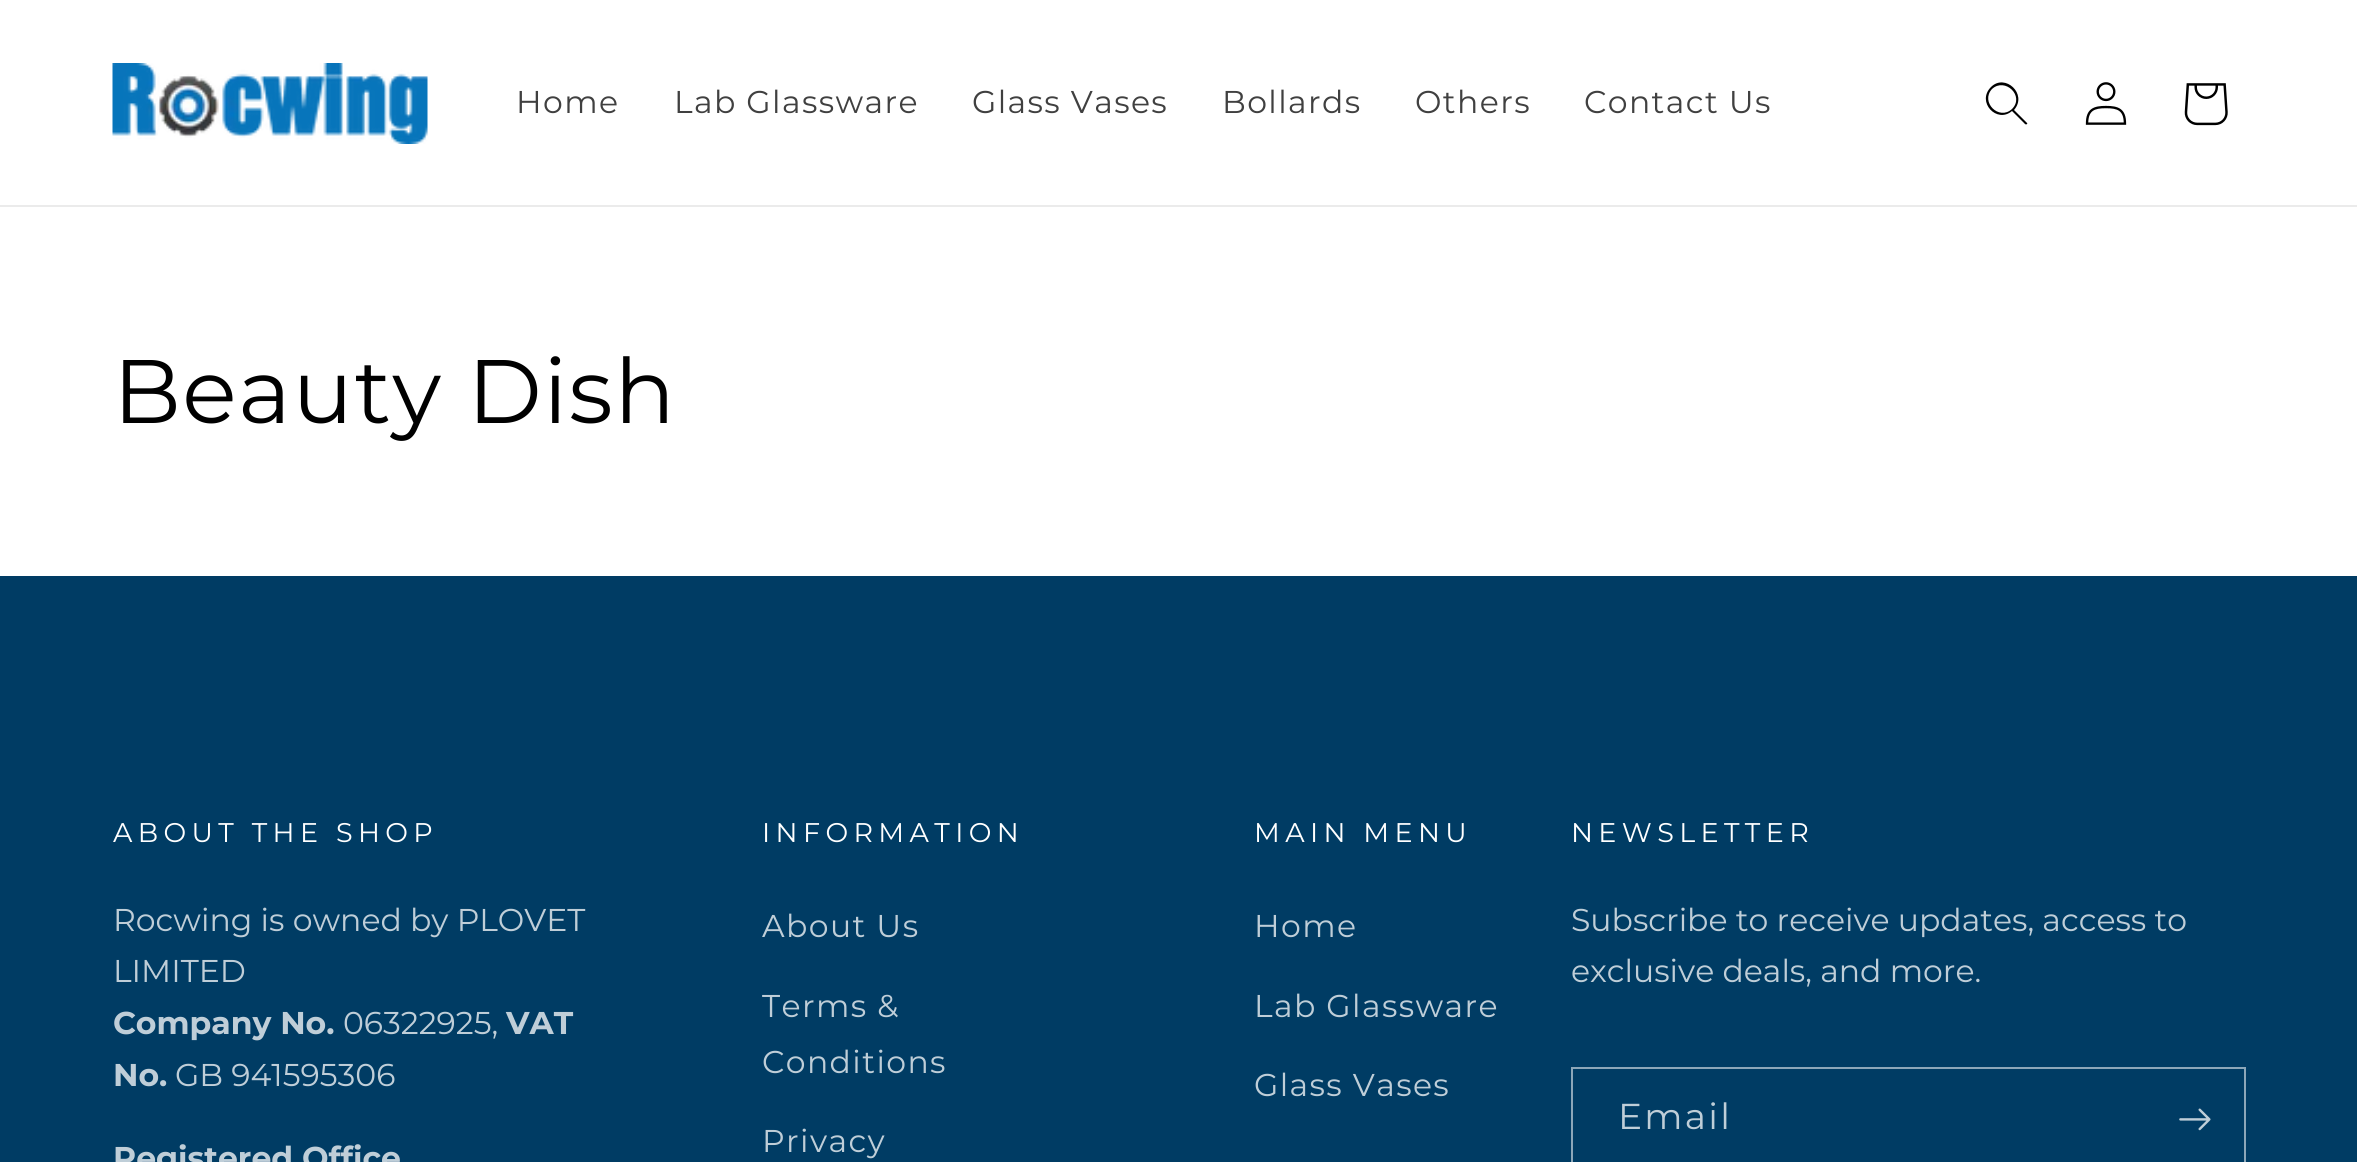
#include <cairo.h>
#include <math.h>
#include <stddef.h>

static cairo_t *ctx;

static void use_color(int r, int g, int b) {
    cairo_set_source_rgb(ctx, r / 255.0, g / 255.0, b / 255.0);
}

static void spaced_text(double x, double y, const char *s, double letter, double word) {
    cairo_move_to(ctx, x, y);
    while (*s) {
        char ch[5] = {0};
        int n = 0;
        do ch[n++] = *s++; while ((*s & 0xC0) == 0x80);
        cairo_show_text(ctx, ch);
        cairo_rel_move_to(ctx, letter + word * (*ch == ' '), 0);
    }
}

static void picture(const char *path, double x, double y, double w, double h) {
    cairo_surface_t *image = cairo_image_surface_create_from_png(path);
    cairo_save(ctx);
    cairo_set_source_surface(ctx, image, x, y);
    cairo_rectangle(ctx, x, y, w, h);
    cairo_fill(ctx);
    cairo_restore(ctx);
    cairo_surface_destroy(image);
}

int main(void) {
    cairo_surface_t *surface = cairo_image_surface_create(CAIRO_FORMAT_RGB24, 2357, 1162);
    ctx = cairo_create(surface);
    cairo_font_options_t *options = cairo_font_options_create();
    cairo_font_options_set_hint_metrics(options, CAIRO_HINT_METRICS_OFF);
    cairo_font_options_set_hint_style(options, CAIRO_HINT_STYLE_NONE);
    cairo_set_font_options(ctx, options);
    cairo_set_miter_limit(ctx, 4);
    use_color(255, 255, 255);
    cairo_paint(ctx);
    use_color(235, 235, 235);
    cairo_rectangle(ctx, 0, 205, 2357, 2);
    cairo_fill(ctx);
    picture("img1.png", 112, 63, 316, 81);
    cairo_select_font_face(ctx, "Montserrat", CAIRO_FONT_SLANT_NORMAL, CAIRO_FONT_WEIGHT_NORMAL);
    cairo_set_font_size(ctx, 31.5);
    use_color(64, 64, 64);
    spaced_text(516, 113, "Home", 1.4, 0);
    spaced_text(674, 113, "Lab Glassware", 1.4, 0);
    spaced_text(972, 113, "Glass Vases", 1.4, 0);
    spaced_text(1222, 113, "Bollards", 1.4, 0);
    spaced_text(1415, 113, "Others", 1.4, 0);
    spaced_text(1584, 113, "Contact Us", 1.4, 0);
    use_color(0, 0, 0);
    cairo_set_fill_rule(ctx, CAIRO_FILL_RULE_EVEN_ODD);
    cairo_new_path(ctx);
    cairo_move_to(ctx, 2012, 109);
    cairo_curve_to(ctx, 1999, 121, 1980, 102, 1992, 89);
    cairo_curve_to(ctx, 2005, 77, 2025, 96, 2012, 109);
    cairo_move_to(ctx, 2012, 111);
    cairo_curve_to(ctx, 1997, 124, 1976, 102, 1991, 87);
    cairo_curve_to(ctx, 2005, 73, 2028, 94, 2014, 110);
    cairo_line_to(ctx, 2027, 123);
    cairo_curve_to(ctx, 2028, 124, 2026, 125, 2025, 124);
    cairo_close_path(ctx);
    cairo_fill(ctx);
    picture("img2.png", 2085, 82, 42, 43);
    picture("img3.png", 2184, 83, 44, 43);
    cairo_set_font_size(ctx, 90);
    spaced_text(113, 423, "Beauty Dish", 1.4, 0);
    use_color(0, 60, 100);
    cairo_rectangle(ctx, 0, 576, 2357, 586);
    cairo_fill(ctx);
    cairo_set_font_size(ctx, 27);
    use_color(255, 255, 255);
    spaced_text(113, 842, "ABOUT THE SHOP", 5.4, 0);
    cairo_set_font_size(ctx, 31.5);
    use_color(191, 206, 216);
    cairo_move_to(ctx, 113, 931);
    cairo_show_text(ctx, "Rocwing is owned by PLOVET");
    cairo_move_to(ctx, 113, 982);
    cairo_show_text(ctx, "LIMITED");
    cairo_select_font_face(ctx, "Montserrat", CAIRO_FONT_SLANT_NORMAL, CAIRO_FONT_WEIGHT_BOLD);
    cairo_move_to(ctx, 113, 1034);
    cairo_show_text(ctx, "Company No.");
    cairo_select_font_face(ctx, "Montserrat", CAIRO_FONT_SLANT_NORMAL, CAIRO_FONT_WEIGHT_NORMAL);
    cairo_move_to(ctx, 343, 1034);
    cairo_show_text(ctx, "06322925,");
    cairo_select_font_face(ctx, "Montserrat", CAIRO_FONT_SLANT_NORMAL, CAIRO_FONT_WEIGHT_BOLD);
    cairo_move_to(ctx, 506, 1034);
    cairo_show_text(ctx, "VAT");
    cairo_move_to(ctx, 113, 1086);
    cairo_show_text(ctx, "No.");
    cairo_select_font_face(ctx, "Montserrat", CAIRO_FONT_SLANT_NORMAL, CAIRO_FONT_WEIGHT_NORMAL);
    cairo_move_to(ctx, 175, 1086);
    cairo_show_text(ctx, "GB 941595306");
    cairo_select_font_face(ctx, "Montserrat", CAIRO_FONT_SLANT_NORMAL, CAIRO_FONT_WEIGHT_BOLD);
    cairo_move_to(ctx, 113, 1169);
    cairo_show_text(ctx, "Registered Office");
    cairo_select_font_face(ctx, "Montserrat", CAIRO_FONT_SLANT_NORMAL, CAIRO_FONT_WEIGHT_NORMAL);
    cairo_set_font_size(ctx, 27);
    use_color(255, 255, 255);
    spaced_text(762, 842, "INFORMATION", 5.4, 0);
    cairo_set_font_size(ctx, 31.5);
    use_color(191, 206, 216);
    spaced_text(762, 937, "About Us", 1.4, 0);
    spaced_text(762, 1017, "Terms &", 1.4, 0);
    spaced_text(762, 1073, "Conditions", 1.4, 0);
    spaced_text(762, 1152, "Privacy", 1.4, 0);
    cairo_set_font_size(ctx, 27);
    use_color(255, 255, 255);
    spaced_text(1254, 842, "MAIN MENU", 5.4, 0);
    cairo_set_font_size(ctx, 31.5);
    use_color(191, 206, 216);
    spaced_text(1254, 937, "Home", 1.4, 0);
    spaced_text(1254, 1017, "Lab Glassware", 1.4, 0);
    spaced_text(1254, 1096, "Glass Vases", 1.4, 0);
    cairo_set_font_size(ctx, 27);
    use_color(255, 255, 255);
    spaced_text(1571, 842, "NEWSLETTER", 5.4, 0);
    cairo_set_font_size(ctx, 31.5);
    use_color(191, 206, 216);
    cairo_move_to(ctx, 1571, 931);
    cairo_show_text(ctx, "Subscribe to receive updates, access to");
    cairo_move_to(ctx, 1571, 982);
    cairo_show_text(ctx, "exclusive deals, and more.");
    cairo_rectangle(ctx, 1572, 1068, 673, 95);
    use_color(140, 167, 185);
    cairo_stroke(ctx);
    cairo_set_font_size(ctx, 36);
    use_color(191, 206, 216);
    spaced_text(1618, 1129, "Email", 2.25, 0);
    picture("img4.png", 2179, 1108, 32, 23);
    cairo_surface_write_to_png(surface, "result.png");
    cairo_font_options_destroy(options);
    cairo_destroy(ctx);
    cairo_surface_destroy(surface);
    return 0;
}
